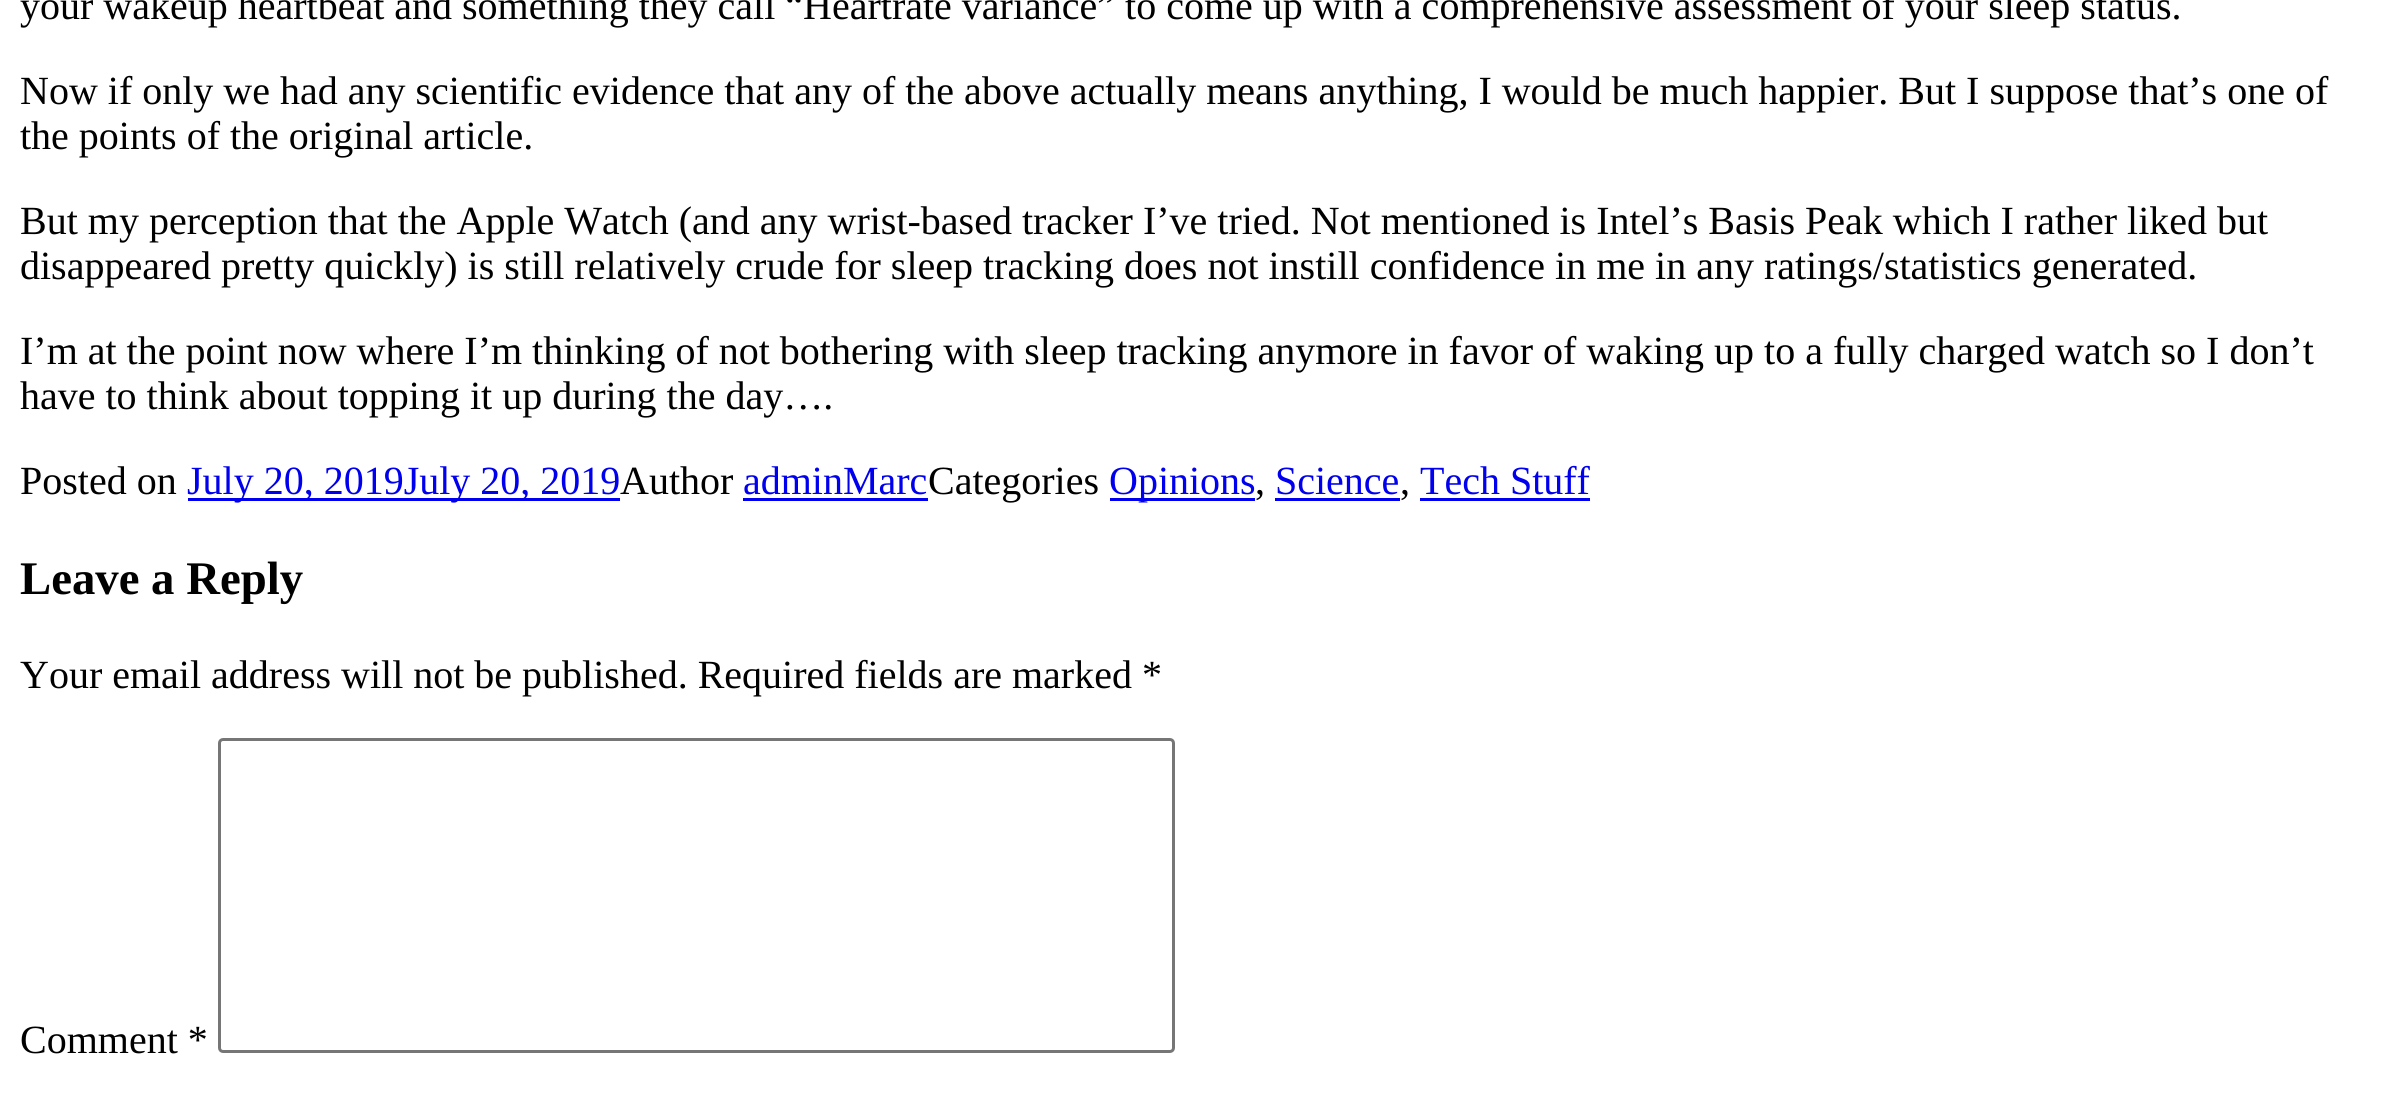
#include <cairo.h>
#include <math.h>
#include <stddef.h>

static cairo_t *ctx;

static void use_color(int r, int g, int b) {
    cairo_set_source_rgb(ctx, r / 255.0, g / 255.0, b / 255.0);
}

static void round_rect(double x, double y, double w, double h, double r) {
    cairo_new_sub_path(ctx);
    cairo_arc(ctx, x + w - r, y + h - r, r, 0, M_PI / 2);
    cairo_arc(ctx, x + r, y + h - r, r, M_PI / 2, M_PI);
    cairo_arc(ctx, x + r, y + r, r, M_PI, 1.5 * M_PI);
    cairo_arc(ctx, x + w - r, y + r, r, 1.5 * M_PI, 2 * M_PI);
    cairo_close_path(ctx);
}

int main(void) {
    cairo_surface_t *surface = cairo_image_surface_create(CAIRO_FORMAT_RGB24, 2393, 1098);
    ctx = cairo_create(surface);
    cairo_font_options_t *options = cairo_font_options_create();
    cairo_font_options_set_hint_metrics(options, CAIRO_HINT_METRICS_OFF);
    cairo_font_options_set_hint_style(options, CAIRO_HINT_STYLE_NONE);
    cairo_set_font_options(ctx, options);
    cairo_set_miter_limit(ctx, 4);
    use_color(255, 255, 255);
    cairo_paint(ctx);
    cairo_select_font_face(ctx, "Liberation Serif", CAIRO_FONT_SLANT_NORMAL, CAIRO_FONT_WEIGHT_NORMAL);
    cairo_set_font_size(ctx, 40);
    use_color(0, 0, 0);
    cairo_move_to(ctx, 20, 19);
    cairo_show_text(ctx, "your wakeup heartbeat and something they call “Heartrate variance” to come up with a comprehensive assessment of your sleep status.");
    cairo_move_to(ctx, 20, 104);
    cairo_show_text(ctx, "Now if only we had any scientific evidence that any of the above actually means anything, I would be much happier. But I suppose that’s one of");
    cairo_move_to(ctx, 20, 149);
    cairo_show_text(ctx, "the points of the original article.");
    cairo_move_to(ctx, 20, 234);
    cairo_show_text(ctx, "But my perception that the Apple Watch (and any wrist-based tracker I’ve tried. Not mentioned is Intel’s Basis Peak which I rather liked but");
    cairo_move_to(ctx, 20, 279);
    cairo_show_text(ctx, "disappeared pretty quickly) is still relatively crude for sleep tracking does not instill confidence in me in any ratings/statistics generated.");
    cairo_move_to(ctx, 20, 364);
    cairo_show_text(ctx, "I’m at the point now where I’m thinking of not bothering with sleep tracking anymore in favor of waking up to a fully charged watch so I don’t");
    cairo_move_to(ctx, 20, 409);
    cairo_show_text(ctx, "have to think about topping it up during the day….");
    cairo_move_to(ctx, 20, 494);
    cairo_show_text(ctx, "Posted on");
    use_color(0, 0, 238);
    cairo_rectangle(ctx, 188, 498, 432, 3);
    cairo_fill(ctx);
    cairo_move_to(ctx, 187, 494);
    cairo_show_text(ctx, "July 20, 2019July 20, 2019");
    use_color(0, 0, 0);
    cairo_move_to(ctx, 620, 494);
    cairo_show_text(ctx, "Author");
    use_color(0, 0, 238);
    cairo_move_to(ctx, 743, 494);
    cairo_show_text(ctx, "adminMarc");
    cairo_rectangle(ctx, 743, 498, 185, 3);
    cairo_fill(ctx);
    use_color(0, 0, 0);
    cairo_move_to(ctx, 928, 494);
    cairo_show_text(ctx, "Categories");
    use_color(0, 0, 238);
    cairo_rectangle(ctx, 1110, 498, 145, 3);
    cairo_fill(ctx);
    cairo_move_to(ctx, 1109, 494);
    cairo_show_text(ctx, "Opinions");
    use_color(0, 0, 0);
    cairo_move_to(ctx, 1255, 494);
    cairo_show_text(ctx, ",");
    use_color(0, 0, 238);
    cairo_move_to(ctx, 1275, 494);
    cairo_show_text(ctx, "Science");
    use_color(0, 0, 0);
    cairo_move_to(ctx, 1400, 494);
    cairo_show_text(ctx, ",");
    use_color(0, 0, 238);
    cairo_rectangle(ctx, 1275, 498, 125, 3);
    cairo_fill(ctx);
    cairo_rectangle(ctx, 1420, 498, 170, 3);
    cairo_fill(ctx);
    cairo_move_to(ctx, 1420, 494);
    cairo_show_text(ctx, "Tech Stuff");
    cairo_select_font_face(ctx, "Liberation Serif", CAIRO_FONT_SLANT_NORMAL, CAIRO_FONT_WEIGHT_BOLD);
    cairo_set_font_size(ctx, 46.75);
    use_color(0, 0, 0);
    cairo_move_to(ctx, 20, 594);
    cairo_show_text(ctx, "Leave a Reply");
    cairo_select_font_face(ctx, "Liberation Serif", CAIRO_FONT_SLANT_NORMAL, CAIRO_FONT_WEIGHT_NORMAL);
    cairo_set_font_size(ctx, 40);
    cairo_move_to(ctx, 20, 688);
    cairo_show_text(ctx, "Your email address will not be published. Required fields are marked *");
    cairo_move_to(ctx, 20, 1053);
    cairo_show_text(ctx, "Comment *");
    round_rect(219.5, 739.5, 954, 312, 3.5);
    use_color(118, 118, 118);
    cairo_set_line_width(ctx, 3);
    cairo_stroke(ctx);
    cairo_surface_write_to_png(surface, "result.png");
    cairo_font_options_destroy(options);
    cairo_destroy(ctx);
    cairo_surface_destroy(surface);
    return 0;
}
